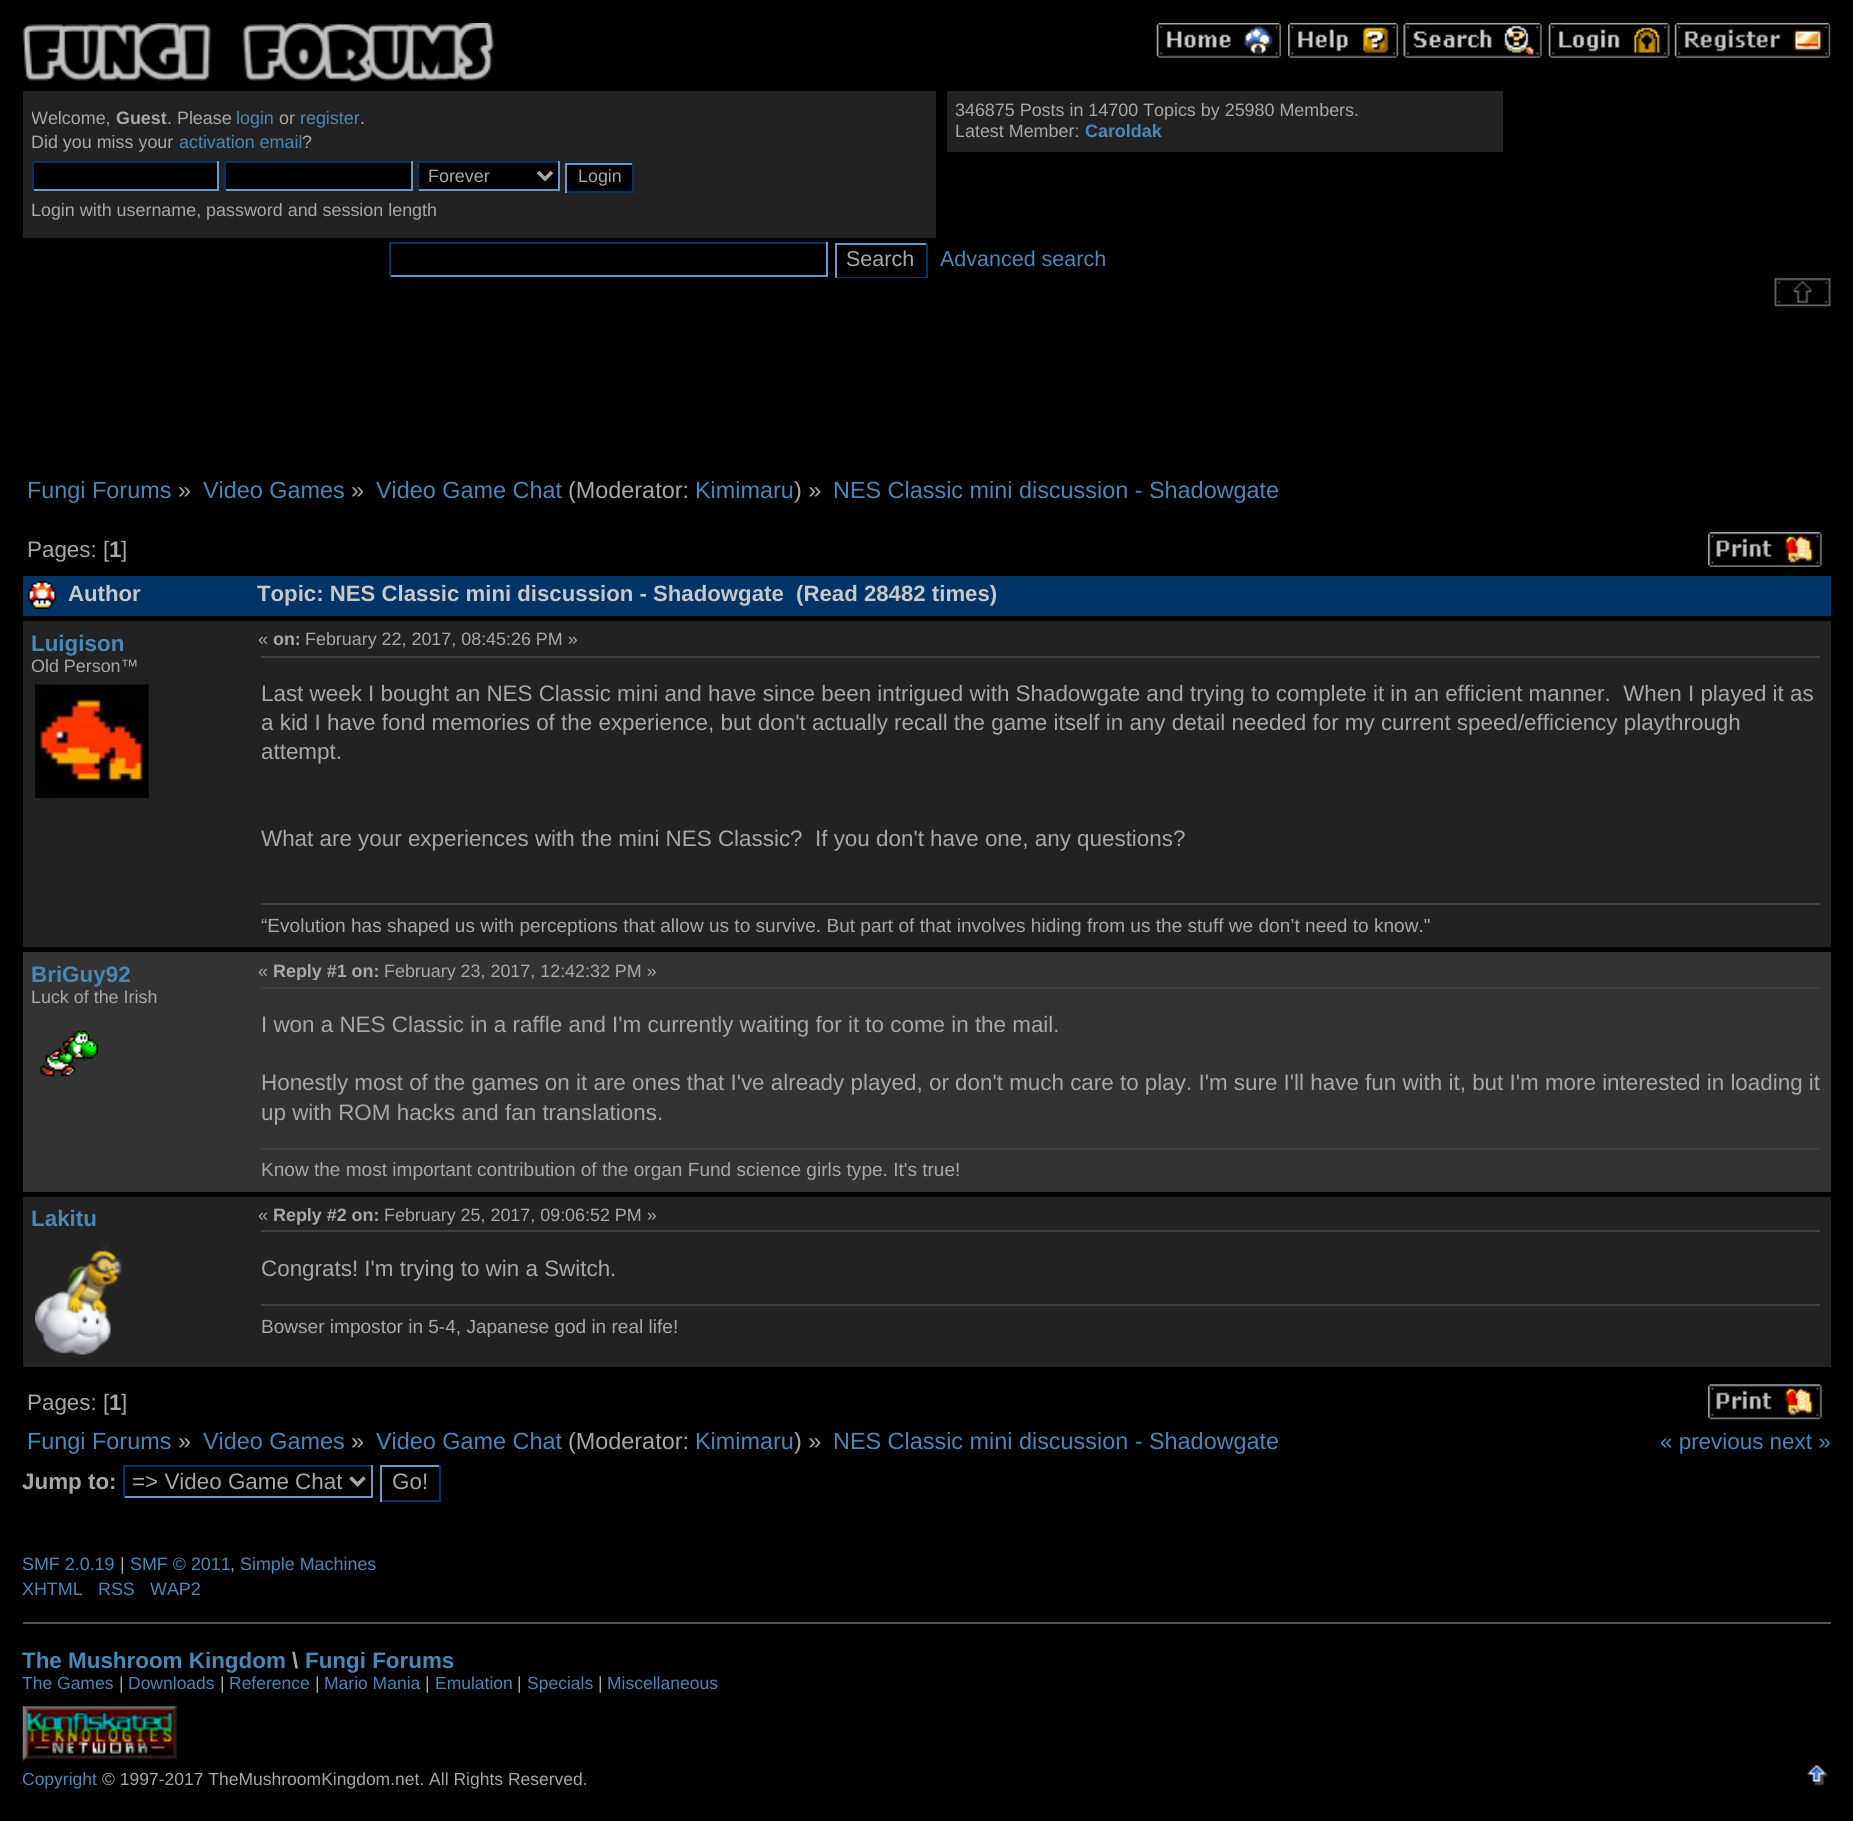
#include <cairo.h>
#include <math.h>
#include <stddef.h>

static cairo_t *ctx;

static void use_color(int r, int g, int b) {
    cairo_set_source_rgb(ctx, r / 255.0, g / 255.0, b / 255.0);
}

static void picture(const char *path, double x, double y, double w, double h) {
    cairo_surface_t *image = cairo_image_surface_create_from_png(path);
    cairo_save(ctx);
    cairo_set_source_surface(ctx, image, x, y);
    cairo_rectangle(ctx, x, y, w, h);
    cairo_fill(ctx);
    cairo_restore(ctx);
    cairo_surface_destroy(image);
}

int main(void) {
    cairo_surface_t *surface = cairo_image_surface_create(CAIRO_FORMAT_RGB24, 1853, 1821);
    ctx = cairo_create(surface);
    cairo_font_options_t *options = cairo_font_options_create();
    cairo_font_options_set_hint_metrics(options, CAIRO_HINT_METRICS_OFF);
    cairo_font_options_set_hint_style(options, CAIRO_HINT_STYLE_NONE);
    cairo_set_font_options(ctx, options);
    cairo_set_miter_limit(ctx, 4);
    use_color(0, 0, 0);
    cairo_paint(ctx);
    picture("img1.png", 22, 22, 472, 60);
    picture("img2.png", 1156, 22, 125, 36);
    picture("img3.png", 1288, 22, 111, 36);
    picture("img4.png", 1403, 22, 139, 36);
    picture("img5.png", 1548, 22, 122, 36);
    picture("img6.png", 1674, 22, 157, 36);
    use_color(34, 34, 34);
    cairo_rectangle(ctx, 23, 91, 913, 147);
    cairo_fill(ctx);
    cairo_save(ctx);
    cairo_rectangle(ctx, 32, 100, 904, 129);
    cairo_clip(ctx);
    cairo_select_font_face(ctx, "Liberation Sans", CAIRO_FONT_SLANT_NORMAL, CAIRO_FONT_WEIGHT_NORMAL);
    cairo_set_font_size(ctx, 17.9);
    use_color(168, 168, 168);
    cairo_move_to(ctx, 31, 124);
    cairo_show_text(ctx, "Welcome,");
    cairo_restore(ctx);
    cairo_select_font_face(ctx, "Liberation Sans", CAIRO_FONT_SLANT_NORMAL, CAIRO_FONT_WEIGHT_BOLD);
    cairo_set_font_size(ctx, 17.9);
    use_color(168, 168, 168);
    cairo_move_to(ctx, 116, 124);
    cairo_show_text(ctx, "Guest");
    cairo_select_font_face(ctx, "Liberation Sans", CAIRO_FONT_SLANT_NORMAL, CAIRO_FONT_WEIGHT_NORMAL);
    cairo_move_to(ctx, 167, 124);
    cairo_show_text(ctx, ". Please");
    use_color(72, 136, 184);
    cairo_move_to(ctx, 236, 124);
    cairo_show_text(ctx, "login");
    use_color(168, 168, 168);
    cairo_move_to(ctx, 279, 124);
    cairo_show_text(ctx, "or");
    use_color(72, 136, 184);
    cairo_move_to(ctx, 300, 124);
    cairo_show_text(ctx, "register");
    use_color(168, 168, 168);
    cairo_move_to(ctx, 360, 124);
    cairo_show_text(ctx, ".");
    cairo_move_to(ctx, 31, 148);
    cairo_show_text(ctx, "Did you miss your");
    use_color(72, 136, 184);
    cairo_move_to(ctx, 179, 148);
    cairo_show_text(ctx, "activation email");
    use_color(168, 168, 168);
    cairo_move_to(ctx, 302, 148);
    cairo_show_text(ctx, "?");
    use_color(0, 0, 0);
    cairo_rectangle(ctx, 34, 163, 183, 26);
    cairo_fill(ctx);
    use_color(0, 51, 102);
    cairo_rectangle(ctx, 32, 161, 187, 2);
    cairo_fill(ctx);
    use_color(102, 153, 204);
    cairo_rectangle(ctx, 217, 161, 2, 30);
    cairo_fill(ctx);
    cairo_rectangle(ctx, 32, 189, 187, 2);
    cairo_fill(ctx);
    use_color(0, 51, 102);
    cairo_rectangle(ctx, 32, 161, 2, 30);
    cairo_fill(ctx);
    use_color(0, 0, 0);
    cairo_rectangle(ctx, 226, 163, 185, 26);
    cairo_fill(ctx);
    use_color(0, 51, 102);
    cairo_rectangle(ctx, 224, 161, 189, 2);
    cairo_fill(ctx);
    use_color(102, 153, 204);
    cairo_rectangle(ctx, 411, 161, 2, 30);
    cairo_fill(ctx);
    cairo_rectangle(ctx, 224, 189, 189, 2);
    cairo_fill(ctx);
    use_color(0, 51, 102);
    cairo_rectangle(ctx, 224, 161, 2, 30);
    cairo_fill(ctx);
    use_color(0, 0, 0);
    cairo_rectangle(ctx, 419, 163, 139, 26);
    cairo_fill(ctx);
    use_color(0, 51, 102);
    cairo_rectangle(ctx, 417, 161, 143, 2);
    cairo_fill(ctx);
    use_color(102, 153, 204);
    cairo_rectangle(ctx, 558, 161, 2, 30);
    cairo_fill(ctx);
    cairo_rectangle(ctx, 417, 189, 143, 2);
    cairo_fill(ctx);
    use_color(0, 51, 102);
    cairo_rectangle(ctx, 417, 161, 2, 30);
    cairo_fill(ctx);
    cairo_new_path(ctx);
    cairo_move_to(ctx, 538, 172);
    cairo_line_to(ctx, 545, 179);
    cairo_line_to(ctx, 552, 172);
    use_color(168, 168, 168);
    cairo_set_line_width(ctx, 3.5);
    cairo_stroke(ctx);
    cairo_move_to(ctx, 428, 182);
    cairo_show_text(ctx, "Forever");
    use_color(0, 0, 0);
    cairo_rectangle(ctx, 567, 165, 65, 26);
    cairo_fill(ctx);
    use_color(102, 153, 204);
    cairo_rectangle(ctx, 565, 163, 69, 2);
    cairo_fill(ctx);
    use_color(0, 51, 102);
    cairo_rectangle(ctx, 632, 163, 2, 30);
    cairo_fill(ctx);
    cairo_rectangle(ctx, 565, 191, 69, 2);
    cairo_fill(ctx);
    use_color(102, 153, 204);
    cairo_rectangle(ctx, 565, 163, 2, 30);
    cairo_fill(ctx);
    use_color(168, 168, 168);
    cairo_move_to(ctx, 578, 182);
    cairo_show_text(ctx, "Login");
    cairo_move_to(ctx, 31, 216);
    cairo_show_text(ctx, "Login with username, password and session length");
    use_color(34, 34, 34);
    cairo_rectangle(ctx, 947, 91, 556, 61);
    cairo_fill(ctx);
    use_color(168, 168, 168);
    cairo_move_to(ctx, 955, 116);
    cairo_show_text(ctx, "346875 Posts in 14700 Topics by 25980 Members.");
    cairo_move_to(ctx, 955, 137);
    cairo_show_text(ctx, "Latest Member:");
    cairo_select_font_face(ctx, "Liberation Sans", CAIRO_FONT_SLANT_NORMAL, CAIRO_FONT_WEIGHT_BOLD);
    use_color(72, 136, 184);
    cairo_move_to(ctx, 1085, 137);
    cairo_show_text(ctx, "Caroldak");
    use_color(0, 51, 102);
    cairo_rectangle(ctx, 389, 242, 439, 2);
    cairo_fill(ctx);
    use_color(102, 153, 204);
    cairo_rectangle(ctx, 826, 242, 2, 35);
    cairo_fill(ctx);
    cairo_rectangle(ctx, 389, 275, 439, 2);
    cairo_fill(ctx);
    use_color(0, 51, 102);
    cairo_rectangle(ctx, 389, 242, 2, 35);
    cairo_fill(ctx);
    use_color(102, 153, 204);
    cairo_rectangle(ctx, 835, 243, 93, 2);
    cairo_fill(ctx);
    use_color(0, 51, 102);
    cairo_rectangle(ctx, 926, 243, 2, 35);
    cairo_fill(ctx);
    cairo_rectangle(ctx, 835, 277, 93, 1);
    cairo_fill(ctx);
    use_color(102, 153, 204);
    cairo_rectangle(ctx, 835, 243, 2, 35);
    cairo_fill(ctx);
    cairo_select_font_face(ctx, "Liberation Sans", CAIRO_FONT_SLANT_NORMAL, CAIRO_FONT_WEIGHT_NORMAL);
    cairo_set_font_size(ctx, 21.5);
    use_color(168, 168, 168);
    cairo_move_to(ctx, 846, 266);
    cairo_show_text(ctx, "Search");
    use_color(72, 136, 184);
    cairo_move_to(ctx, 940, 266);
    cairo_show_text(ctx, "Advanced search");
    picture("img7.png", 1774, 278, 57, 29);
    cairo_set_font_size(ctx, 23.4);
    cairo_move_to(ctx, 27, 498);
    cairo_show_text(ctx, "Fungi Forums");
    use_color(168, 168, 168);
    cairo_move_to(ctx, 178, 498);
    cairo_show_text(ctx, "»");
    use_color(72, 136, 184);
    cairo_move_to(ctx, 203, 498);
    cairo_show_text(ctx, "Video Games");
    use_color(168, 168, 168);
    cairo_move_to(ctx, 351, 498);
    cairo_show_text(ctx, "»");
    use_color(72, 136, 184);
    cairo_move_to(ctx, 376, 498);
    cairo_show_text(ctx, "Video Game Chat");
    use_color(168, 168, 168);
    cairo_move_to(ctx, 568, 498);
    cairo_show_text(ctx, "(Moderator:");
    use_color(72, 136, 184);
    cairo_move_to(ctx, 695, 498);
    cairo_show_text(ctx, "Kimimaru");
    use_color(168, 168, 168);
    cairo_move_to(ctx, 794, 498);
    cairo_show_text(ctx, ") »");
    use_color(72, 136, 184);
    cairo_move_to(ctx, 833, 498);
    cairo_show_text(ctx, "NES Classic mini discussion - Shadowgate");
    cairo_set_font_size(ctx, 22.4);
    use_color(168, 168, 168);
    cairo_move_to(ctx, 27, 557);
    cairo_show_text(ctx, "Pages: [");
    cairo_select_font_face(ctx, "Liberation Sans", CAIRO_FONT_SLANT_NORMAL, CAIRO_FONT_WEIGHT_BOLD);
    cairo_move_to(ctx, 109, 557);
    cairo_show_text(ctx, "1");
    cairo_select_font_face(ctx, "Liberation Sans", CAIRO_FONT_SLANT_NORMAL, CAIRO_FONT_WEIGHT_NORMAL);
    cairo_move_to(ctx, 121, 557);
    cairo_show_text(ctx, "]");
    picture("img8.png", 1708, 532, 114, 35);
    use_color(0, 51, 102);
    cairo_rectangle(ctx, 23, 576, 1808, 40);
    cairo_fill(ctx);
    picture("img9.png", 28, 581, 28, 28);
    cairo_select_font_face(ctx, "Liberation Sans", CAIRO_FONT_SLANT_NORMAL, CAIRO_FONT_WEIGHT_BOLD);
    cairo_set_font_size(ctx, 22.2);
    use_color(200, 200, 200);
    cairo_move_to(ctx, 68, 601);
    cairo_show_text(ctx, "Author");
    cairo_move_to(ctx, 257, 601);
    cairo_show_text(ctx, "Topic: NES Classic mini discussion - Shadowgate  (Read 28482 times)");
    use_color(34, 34, 34);
    cairo_rectangle(ctx, 23, 621, 1808, 326);
    cairo_fill(ctx);
    cairo_set_font_size(ctx, 22.4);
    use_color(72, 136, 184);
    cairo_move_to(ctx, 31, 651);
    cairo_show_text(ctx, "Luigison");
    cairo_select_font_face(ctx, "Liberation Sans", CAIRO_FONT_SLANT_NORMAL, CAIRO_FONT_WEIGHT_NORMAL);
    cairo_set_font_size(ctx, 17.9);
    use_color(168, 168, 168);
    cairo_move_to(ctx, 31, 672);
    cairo_show_text(ctx, "Old Person™");
    picture("img10.png", 35, 684, 114, 114);
    cairo_move_to(ctx, 258, 645);
    cairo_show_text(ctx, "«");
    cairo_select_font_face(ctx, "Liberation Sans", CAIRO_FONT_SLANT_NORMAL, CAIRO_FONT_WEIGHT_BOLD);
    cairo_move_to(ctx, 273, 645);
    cairo_show_text(ctx, "on:");
    cairo_select_font_face(ctx, "Liberation Sans", CAIRO_FONT_SLANT_NORMAL, CAIRO_FONT_WEIGHT_NORMAL);
    cairo_move_to(ctx, 305, 645);
    cairo_show_text(ctx, "February 22, 2017, 08:45:26 PM »");
    use_color(64, 64, 64);
    cairo_rectangle(ctx, 261, 656, 1559, 2);
    cairo_fill(ctx);
    cairo_set_font_size(ctx, 22.4);
    use_color(168, 168, 168);
    cairo_move_to(ctx, 261, 701);
    cairo_show_text(ctx, "Last week I bought an NES Classic mini and have since been intrigued with Shadowgate and trying to complete it in an efficient manner.  When I played it as");
    cairo_move_to(ctx, 261, 730);
    cairo_show_text(ctx, "a kid I have fond memories of the experience, but don't actually recall the game itself in any detail needed for my current speed/efficiency playthrough");
    cairo_move_to(ctx, 261, 759);
    cairo_show_text(ctx, "attempt.");
    cairo_move_to(ctx, 261, 846);
    cairo_show_text(ctx, "What are your experiences with the mini NES Classic?  If you don't have one, any questions?");
    use_color(64, 64, 64);
    cairo_rectangle(ctx, 261, 903, 1559, 2);
    cairo_fill(ctx);
    cairo_set_font_size(ctx, 19.05);
    use_color(168, 168, 168);
    cairo_move_to(ctx, 261, 932);
    cairo_show_text(ctx, "“Evolution has shaped us with perceptions that allow us to survive. But part of that involves hiding from us the stuff we don’t need to know.\"");
    use_color(51, 51, 51);
    cairo_rectangle(ctx, 23, 952, 1808, 240);
    cairo_fill(ctx);
    cairo_select_font_face(ctx, "Liberation Sans", CAIRO_FONT_SLANT_NORMAL, CAIRO_FONT_WEIGHT_BOLD);
    cairo_set_font_size(ctx, 22.4);
    use_color(72, 136, 184);
    cairo_move_to(ctx, 31, 982);
    cairo_show_text(ctx, "BriGuy92");
    cairo_select_font_face(ctx, "Liberation Sans", CAIRO_FONT_SLANT_NORMAL, CAIRO_FONT_WEIGHT_NORMAL);
    cairo_set_font_size(ctx, 17.9);
    use_color(168, 168, 168);
    cairo_move_to(ctx, 31, 1003);
    cairo_show_text(ctx, "Luck of the Irish");
    picture("img11.png", 40, 1030, 58, 47);
    cairo_move_to(ctx, 258, 977);
    cairo_show_text(ctx, "«");
    cairo_save(ctx);
    cairo_rectangle(ctx, 257, 952, 1574, 28);
    cairo_clip(ctx);
    cairo_select_font_face(ctx, "Liberation Sans", CAIRO_FONT_SLANT_NORMAL, CAIRO_FONT_WEIGHT_BOLD);
    cairo_move_to(ctx, 273, 977);
    cairo_show_text(ctx, "Reply #1 on:");
    cairo_select_font_face(ctx, "Liberation Sans", CAIRO_FONT_SLANT_NORMAL, CAIRO_FONT_WEIGHT_NORMAL);
    cairo_move_to(ctx, 384, 977);
    cairo_show_text(ctx, "February 23, 2017, 12:42:32 PM »");
    cairo_restore(ctx);
    use_color(64, 64, 64);
    cairo_rectangle(ctx, 261, 987, 1559, 2);
    cairo_fill(ctx);
    cairo_set_font_size(ctx, 22.4);
    use_color(168, 168, 168);
    cairo_move_to(ctx, 261, 1032);
    cairo_show_text(ctx, "I won a NES Classic in a raffle and I'm currently waiting for it to come in the mail.");
    cairo_move_to(ctx, 261, 1090);
    cairo_show_text(ctx, "Honestly most of the games on it are ones that I've already played, or don't much care to play. I'm sure I'll have fun with it, but I'm more interested in loading it");
    cairo_move_to(ctx, 261, 1120);
    cairo_show_text(ctx, "up with ROM hacks and fan translations.");
    use_color(64, 64, 64);
    cairo_rectangle(ctx, 261, 1148, 1559, 2);
    cairo_fill(ctx);
    cairo_set_font_size(ctx, 19.05);
    use_color(168, 168, 168);
    cairo_move_to(ctx, 261, 1176);
    cairo_show_text(ctx, "Know the most important contribution of the organ Fund science girls type. It's true!");
    use_color(34, 34, 34);
    cairo_rectangle(ctx, 23, 1197, 1808, 170);
    cairo_fill(ctx);
    cairo_select_font_face(ctx, "Liberation Sans", CAIRO_FONT_SLANT_NORMAL, CAIRO_FONT_WEIGHT_BOLD);
    cairo_set_font_size(ctx, 22.4);
    use_color(72, 136, 184);
    cairo_move_to(ctx, 31, 1226);
    cairo_show_text(ctx, "Lakitu");
    picture("img12.png", 35, 1242, 88, 113);
    cairo_select_font_face(ctx, "Liberation Sans", CAIRO_FONT_SLANT_NORMAL, CAIRO_FONT_WEIGHT_NORMAL);
    cairo_set_font_size(ctx, 17.9);
    use_color(168, 168, 168);
    cairo_move_to(ctx, 258, 1221);
    cairo_show_text(ctx, "«");
    cairo_select_font_face(ctx, "Liberation Sans", CAIRO_FONT_SLANT_NORMAL, CAIRO_FONT_WEIGHT_BOLD);
    cairo_move_to(ctx, 273, 1221);
    cairo_show_text(ctx, "Reply #2 on:");
    cairo_select_font_face(ctx, "Liberation Sans", CAIRO_FONT_SLANT_NORMAL, CAIRO_FONT_WEIGHT_NORMAL);
    cairo_move_to(ctx, 384, 1221);
    cairo_show_text(ctx, "February 25, 2017, 09:06:52 PM »");
    use_color(64, 64, 64);
    cairo_rectangle(ctx, 261, 1230, 1559, 2);
    cairo_fill(ctx);
    cairo_set_font_size(ctx, 22.4);
    use_color(168, 168, 168);
    cairo_move_to(ctx, 261, 1276);
    cairo_show_text(ctx, "Congrats! I'm trying to win a Switch.");
    use_color(64, 64, 64);
    cairo_rectangle(ctx, 261, 1304, 1559, 2);
    cairo_fill(ctx);
    cairo_set_font_size(ctx, 19.05);
    use_color(168, 168, 168);
    cairo_move_to(ctx, 261, 1333);
    cairo_show_text(ctx, "Bowser impostor in 5-4, Japanese god in real life!");
    cairo_set_font_size(ctx, 22.4);
    cairo_move_to(ctx, 27, 1410);
    cairo_show_text(ctx, "Pages: [");
    cairo_select_font_face(ctx, "Liberation Sans", CAIRO_FONT_SLANT_NORMAL, CAIRO_FONT_WEIGHT_BOLD);
    cairo_move_to(ctx, 109, 1410);
    cairo_show_text(ctx, "1");
    cairo_select_font_face(ctx, "Liberation Sans", CAIRO_FONT_SLANT_NORMAL, CAIRO_FONT_WEIGHT_NORMAL);
    cairo_move_to(ctx, 121, 1410);
    cairo_show_text(ctx, "]");
    picture("img13.png", 1708, 1384, 114, 36);
    cairo_set_font_size(ctx, 23.4);
    use_color(72, 136, 184);
    cairo_move_to(ctx, 27, 1449);
    cairo_show_text(ctx, "Fungi Forums");
    use_color(168, 168, 168);
    cairo_move_to(ctx, 178, 1449);
    cairo_show_text(ctx, "»");
    use_color(72, 136, 184);
    cairo_move_to(ctx, 203, 1449);
    cairo_show_text(ctx, "Video Games");
    use_color(168, 168, 168);
    cairo_move_to(ctx, 351, 1449);
    cairo_show_text(ctx, "»");
    use_color(72, 136, 184);
    cairo_move_to(ctx, 376, 1449);
    cairo_show_text(ctx, "Video Game Chat");
    use_color(168, 168, 168);
    cairo_move_to(ctx, 568, 1449);
    cairo_show_text(ctx, "(Moderator:");
    use_color(72, 136, 184);
    cairo_move_to(ctx, 695, 1449);
    cairo_show_text(ctx, "Kimimaru");
    use_color(168, 168, 168);
    cairo_move_to(ctx, 794, 1449);
    cairo_show_text(ctx, ") »");
    use_color(72, 136, 184);
    cairo_move_to(ctx, 833, 1449);
    cairo_show_text(ctx, "NES Classic mini discussion - Shadowgate");
    cairo_set_font_size(ctx, 22.4);
    cairo_move_to(ctx, 1660, 1449);
    cairo_show_text(ctx, "« previous next »");
    cairo_select_font_face(ctx, "Liberation Sans", CAIRO_FONT_SLANT_NORMAL, CAIRO_FONT_WEIGHT_BOLD);
    use_color(168, 168, 168);
    cairo_move_to(ctx, 22, 1489);
    cairo_show_text(ctx, "Jump to:");
    use_color(0, 51, 102);
    cairo_rectangle(ctx, 123, 1465, 250, 2);
    cairo_fill(ctx);
    use_color(102, 153, 204);
    cairo_rectangle(ctx, 371, 1465, 2, 33);
    cairo_fill(ctx);
    cairo_rectangle(ctx, 123, 1496, 250, 2);
    cairo_fill(ctx);
    use_color(0, 51, 102);
    cairo_rectangle(ctx, 123, 1465, 2, 33);
    cairo_fill(ctx);
    cairo_new_path(ctx);
    cairo_move_to(ctx, 350.5, 1477.5);
    cairo_line_to(ctx, 357.5, 1484.5);
    cairo_line_to(ctx, 364.5, 1477.5);
    use_color(168, 168, 168);
    cairo_stroke(ctx);
    cairo_select_font_face(ctx, "Liberation Sans", CAIRO_FONT_SLANT_NORMAL, CAIRO_FONT_WEIGHT_NORMAL);
    cairo_move_to(ctx, 132, 1489);
    cairo_show_text(ctx, "=> Video Game Chat");
    use_color(102, 153, 204);
    cairo_rectangle(ctx, 380, 1465, 61, 2);
    cairo_fill(ctx);
    use_color(0, 51, 102);
    cairo_rectangle(ctx, 439, 1465, 2, 37);
    cairo_fill(ctx);
    cairo_rectangle(ctx, 380, 1500, 61, 2);
    cairo_fill(ctx);
    use_color(102, 153, 204);
    cairo_rectangle(ctx, 380, 1465, 2, 37);
    cairo_fill(ctx);
    use_color(168, 168, 168);
    cairo_move_to(ctx, 392, 1489);
    cairo_show_text(ctx, "Go!");
    cairo_set_font_size(ctx, 17.9);
    use_color(72, 136, 184);
    cairo_move_to(ctx, 22, 1570);
    cairo_show_text(ctx, "SMF 2.0.19");
    use_color(168, 168, 168);
    cairo_move_to(ctx, 120, 1570);
    cairo_show_text(ctx, "|");
    use_color(72, 136, 184);
    cairo_move_to(ctx, 130, 1570);
    cairo_show_text(ctx, "SMF © 2011");
    use_color(168, 168, 168);
    cairo_move_to(ctx, 230, 1570);
    cairo_show_text(ctx, ",");
    use_color(72, 136, 184);
    cairo_move_to(ctx, 240, 1570);
    cairo_show_text(ctx, "Simple Machines");
    cairo_move_to(ctx, 22, 1595);
    cairo_show_text(ctx, "XHTML");
    cairo_move_to(ctx, 98, 1595);
    cairo_show_text(ctx, "RSS");
    cairo_move_to(ctx, 150, 1595);
    cairo_show_text(ctx, "WAP2");
    use_color(80, 80, 80);
    cairo_rectangle(ctx, 23, 1622, 1808, 2);
    cairo_fill(ctx);
    cairo_select_font_face(ctx, "Liberation Sans", CAIRO_FONT_SLANT_NORMAL, CAIRO_FONT_WEIGHT_BOLD);
    cairo_set_font_size(ctx, 22.4);
    use_color(72, 136, 184);
    cairo_move_to(ctx, 22, 1668);
    cairo_show_text(ctx, "The Mushroom Kingdom");
    use_color(168, 168, 168);
    cairo_move_to(ctx, 292, 1668);
    cairo_show_text(ctx, "\\");
    use_color(72, 136, 184);
    cairo_move_to(ctx, 305, 1668);
    cairo_show_text(ctx, "Fungi Forums");
    cairo_select_font_face(ctx, "Liberation Sans", CAIRO_FONT_SLANT_NORMAL, CAIRO_FONT_WEIGHT_NORMAL);
    cairo_set_font_size(ctx, 17.5);
    cairo_move_to(ctx, 22, 1689);
    cairo_show_text(ctx, "The Games");
    use_color(168, 168, 168);
    cairo_move_to(ctx, 119, 1689);
    cairo_show_text(ctx, "|");
    use_color(72, 136, 184);
    cairo_move_to(ctx, 128, 1689);
    cairo_show_text(ctx, "Downloads");
    use_color(168, 168, 168);
    cairo_move_to(ctx, 220, 1689);
    cairo_show_text(ctx, "|");
    use_color(72, 136, 184);
    cairo_move_to(ctx, 229, 1689);
    cairo_show_text(ctx, "Reference");
    use_color(168, 168, 168);
    cairo_move_to(ctx, 315, 1689);
    cairo_show_text(ctx, "|");
    use_color(72, 136, 184);
    cairo_move_to(ctx, 324, 1689);
    cairo_show_text(ctx, "Mario Mania");
    use_color(168, 168, 168);
    cairo_move_to(ctx, 425, 1689);
    cairo_show_text(ctx, "|");
    use_color(72, 136, 184);
    cairo_move_to(ctx, 435, 1689);
    cairo_show_text(ctx, "Emulation");
    use_color(168, 168, 168);
    cairo_move_to(ctx, 517, 1689);
    cairo_show_text(ctx, "|");
    use_color(72, 136, 184);
    cairo_move_to(ctx, 527, 1689);
    cairo_show_text(ctx, "Specials");
    use_color(168, 168, 168);
    cairo_move_to(ctx, 598, 1689);
    cairo_show_text(ctx, "|");
    use_color(72, 136, 184);
    cairo_move_to(ctx, 607, 1689);
    cairo_show_text(ctx, "Miscellaneous");
    picture("img14.png", 22, 1706, 155, 55);
    cairo_move_to(ctx, 22, 1785);
    cairo_show_text(ctx, "Copyright");
    use_color(168, 168, 168);
    cairo_move_to(ctx, 102, 1785);
    cairo_show_text(ctx, "© 1997-2017 TheMushroomKingdom.net. All Rights Reserved.");
    picture("img15.png", 1807, 1765, 21, 21);
    cairo_surface_write_to_png(surface, "result.png");
    cairo_font_options_destroy(options);
    cairo_destroy(ctx);
    cairo_surface_destroy(surface);
    return 0;
}
